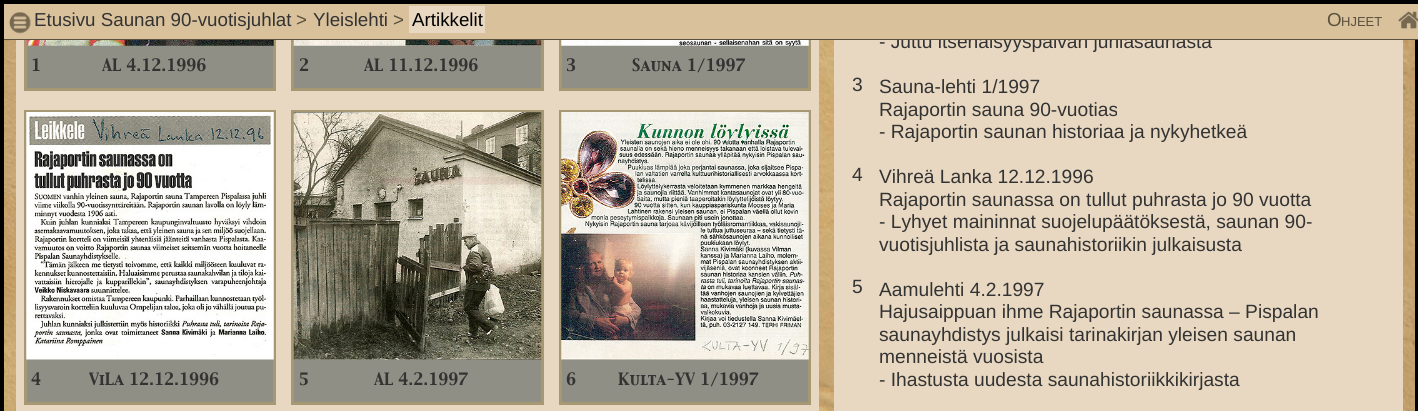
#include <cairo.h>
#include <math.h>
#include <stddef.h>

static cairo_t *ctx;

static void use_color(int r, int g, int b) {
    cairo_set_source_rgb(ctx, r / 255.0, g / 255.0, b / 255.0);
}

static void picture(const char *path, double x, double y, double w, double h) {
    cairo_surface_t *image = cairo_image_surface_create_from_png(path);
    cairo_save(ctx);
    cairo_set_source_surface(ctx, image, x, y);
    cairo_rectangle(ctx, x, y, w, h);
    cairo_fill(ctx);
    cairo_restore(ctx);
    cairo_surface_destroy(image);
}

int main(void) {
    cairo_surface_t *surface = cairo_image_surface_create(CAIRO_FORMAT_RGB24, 1418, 411);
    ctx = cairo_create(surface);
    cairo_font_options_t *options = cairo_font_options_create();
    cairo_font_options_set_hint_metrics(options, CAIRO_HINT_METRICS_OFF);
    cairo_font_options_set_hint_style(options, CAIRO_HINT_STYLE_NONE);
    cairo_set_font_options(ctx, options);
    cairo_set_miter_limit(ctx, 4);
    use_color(255, 255, 255);
    cairo_paint(ctx);
    picture("img1.png", 4, 40, 1411, 371);
    cairo_rectangle(ctx, 2, -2, 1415, 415);
    use_color(0, 0, 0);
    cairo_set_line_width(ctx, 4);
    cairo_stroke(ctx);
    use_color(232, 216, 193);
    cairo_rectangle(ctx, 16, 40, 803, 371);
    cairo_fill(ctx);
    use_color(143, 143, 133);
    cairo_rectangle(ctx, 27, 45, 246, 43);
    cairo_fill(ctx);
    cairo_rectangle(ctx, 25.5, -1.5, 249, 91);
    use_color(166, 152, 115);
    cairo_set_line_width(ctx, 3);
    cairo_stroke(ctx);
    use_color(143, 143, 133);
    cairo_rectangle(ctx, 294, 45, 247, 43);
    cairo_fill(ctx);
    cairo_rectangle(ctx, 292.5, -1.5, 250, 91);
    use_color(166, 152, 115);
    cairo_stroke(ctx);
    use_color(143, 143, 133);
    cairo_rectangle(ctx, 562, 45, 246, 43);
    cairo_fill(ctx);
    cairo_rectangle(ctx, 560.5, -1.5, 249, 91);
    use_color(166, 152, 115);
    cairo_stroke(ctx);
    use_color(232, 216, 193);
    cairo_rectangle(ctx, 834, 40, 569, 371);
    cairo_fill(ctx);
    cairo_select_font_face(ctx, "Liberation Sans", CAIRO_FONT_SLANT_NORMAL, CAIRO_FONT_WEIGHT_NORMAL);
    cairo_set_font_size(ctx, 19.2);
    use_color(51, 51, 51);
    cairo_move_to(ctx, 879, 48);
    cairo_show_text(ctx, "- Juttu itsenäisyyspäivän juhlasaunasta");
    use_color(217, 193, 155);
    cairo_rectangle(ctx, 4, 4, 1414, 35);
    cairo_fill(ctx);
    use_color(0, 0, 0);
    cairo_rectangle(ctx, 4, 0, 1414, 4);
    cairo_fill(ctx);
    use_color(89, 80, 61);
    cairo_rectangle(ctx, 4, 39, 1414, 1);
    cairo_fill(ctx);
    picture("img2.png", 9, 12, 22, 22);
    cairo_set_font_size(ctx, 18.75);
    use_color(51, 51, 51);
    cairo_move_to(ctx, 34, 26);
    cairo_show_text(ctx, "Etusivu Saunan 90-vuotisjuhlat");
    use_color(89, 80, 61);
    cairo_move_to(ctx, 296, 26);
    cairo_show_text(ctx, ">");
    use_color(51, 51, 51);
    cairo_move_to(ctx, 313, 26);
    cairo_show_text(ctx, "Yleislehti");
    use_color(89, 80, 61);
    cairo_move_to(ctx, 393, 26);
    cairo_show_text(ctx, ">");
    use_color(232, 216, 193);
    cairo_rectangle(ctx, 409, 6, 76, 27);
    cairo_fill(ctx);
    use_color(0, 0, 0);
    cairo_move_to(ctx, 412, 26);
    cairo_show_text(ctx, "Artikkelit");
    use_color(89, 80, 61);
    cairo_move_to(ctx, 1327, 26);
    cairo_show_text(ctx, "O");
    cairo_set_font_size(ctx, 13);
    cairo_move_to(ctx, 1341, 26);
    cairo_show_text(ctx, "HJEET");
    picture("img3.png", 1398, 11, 20, 18);
    picture("img4.png", 26, 40, 248, 6);
    cairo_select_font_face(ctx, "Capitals", CAIRO_FONT_SLANT_NORMAL, CAIRO_FONT_WEIGHT_NORMAL);
    cairo_set_font_size(ctx, 15);
    use_color(51, 51, 51);
    cairo_move_to(ctx, 31, 71);
    cairo_show_text(ctx, "1");
    cairo_move_to(ctx, 102, 71);
    cairo_show_text(ctx, "AL 4.12.1996");
    picture("img5.png", 293, 40, 249, 6);
    cairo_move_to(ctx, 299, 71);
    cairo_show_text(ctx, "2");
    cairo_move_to(ctx, 364, 71);
    cairo_show_text(ctx, "AL 11.12.1996");
    picture("img6.png", 561, 40, 248, 6);
    cairo_move_to(ctx, 566, 71);
    cairo_show_text(ctx, "3");
    cairo_move_to(ctx, 632, 71);
    cairo_show_text(ctx, "Sauna 1/1997");
    use_color(143, 143, 133);
    cairo_rectangle(ctx, 27, 359, 246, 43);
    cairo_fill(ctx);
    cairo_rectangle(ctx, 25.5, 111.5, 249, 292);
    use_color(166, 152, 115);
    cairo_stroke(ctx);
    picture("img7.png", 26, 112, 248, 248);
    use_color(51, 51, 51);
    cairo_move_to(ctx, 31, 385);
    cairo_show_text(ctx, "4");
    cairo_move_to(ctx, 89, 385);
    cairo_show_text(ctx, "ViLa 12.12.1996");
    use_color(143, 143, 133);
    cairo_rectangle(ctx, 294, 359, 247, 43);
    cairo_fill(ctx);
    cairo_rectangle(ctx, 292.5, 111.5, 250, 292);
    use_color(166, 152, 115);
    cairo_stroke(ctx);
    picture("img8.png", 293, 112, 249, 248);
    use_color(51, 51, 51);
    cairo_move_to(ctx, 299, 385);
    cairo_show_text(ctx, "5");
    cairo_move_to(ctx, 374, 385);
    cairo_show_text(ctx, "AL 4.2.1997");
    use_color(143, 143, 133);
    cairo_rectangle(ctx, 562, 359, 246, 43);
    cairo_fill(ctx);
    cairo_rectangle(ctx, 560.5, 111.5, 249, 292);
    use_color(166, 152, 115);
    cairo_stroke(ctx);
    picture("img9.png", 561, 112, 248, 248);
    use_color(51, 51, 51);
    cairo_move_to(ctx, 566, 385);
    cairo_show_text(ctx, "6");
    cairo_move_to(ctx, 618, 385);
    cairo_show_text(ctx, "Kulta-YV 1/1997");
    cairo_select_font_face(ctx, "Liberation Sans", CAIRO_FONT_SLANT_NORMAL, CAIRO_FONT_WEIGHT_NORMAL);
    cairo_set_font_size(ctx, 19.2);
    cairo_move_to(ctx, 852, 91);
    cairo_show_text(ctx, "3");
    cairo_move_to(ctx, 879, 93);
    cairo_show_text(ctx, "Sauna-lehti 1/1997");
    cairo_move_to(ctx, 879, 116);
    cairo_show_text(ctx, "Rajaportin sauna 90-vuotias");
    cairo_move_to(ctx, 879, 138);
    cairo_show_text(ctx, "- Rajaportin saunan historiaa ja nykyhetkeä");
    cairo_move_to(ctx, 852, 181);
    cairo_show_text(ctx, "4");
    cairo_move_to(ctx, 879, 183);
    cairo_show_text(ctx, "Vihreä Lanka 12.12.1996");
    cairo_move_to(ctx, 879, 206);
    cairo_show_text(ctx, "Rajaportin saunassa on tullut puhrasta jo 90 vuotta");
    cairo_move_to(ctx, 879, 228);
    cairo_show_text(ctx, "- Lyhyet maininnat suojelupäätöksestä, saunan 90-");
    cairo_move_to(ctx, 879, 251);
    cairo_show_text(ctx, "vuotisjuhlista ja saunahistoriikin julkaisusta");
    cairo_move_to(ctx, 852, 293);
    cairo_show_text(ctx, "5");
    cairo_move_to(ctx, 879, 296);
    cairo_show_text(ctx, "Aamulehti 4.2.1997");
    cairo_move_to(ctx, 879, 318);
    cairo_show_text(ctx, "Hajusaippuan ihme Rajaportin saunassa – Pispalan");
    cairo_move_to(ctx, 879, 341);
    cairo_show_text(ctx, "saunayhdistys julkaisi tarinakirjan yleisen saunan");
    cairo_move_to(ctx, 879, 363);
    cairo_show_text(ctx, "menneistä vuosista");
    cairo_move_to(ctx, 879, 386);
    cairo_show_text(ctx, "- Ihastusta uudesta saunahistoriikkikirjasta");
    cairo_surface_write_to_png(surface, "result.png");
    cairo_font_options_destroy(options);
    cairo_destroy(ctx);
    cairo_surface_destroy(surface);
    return 0;
}
